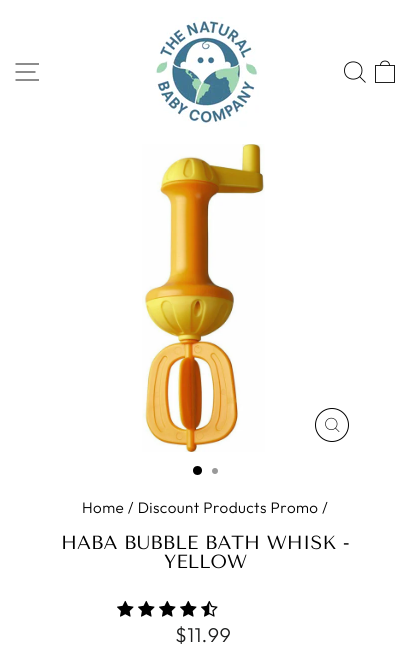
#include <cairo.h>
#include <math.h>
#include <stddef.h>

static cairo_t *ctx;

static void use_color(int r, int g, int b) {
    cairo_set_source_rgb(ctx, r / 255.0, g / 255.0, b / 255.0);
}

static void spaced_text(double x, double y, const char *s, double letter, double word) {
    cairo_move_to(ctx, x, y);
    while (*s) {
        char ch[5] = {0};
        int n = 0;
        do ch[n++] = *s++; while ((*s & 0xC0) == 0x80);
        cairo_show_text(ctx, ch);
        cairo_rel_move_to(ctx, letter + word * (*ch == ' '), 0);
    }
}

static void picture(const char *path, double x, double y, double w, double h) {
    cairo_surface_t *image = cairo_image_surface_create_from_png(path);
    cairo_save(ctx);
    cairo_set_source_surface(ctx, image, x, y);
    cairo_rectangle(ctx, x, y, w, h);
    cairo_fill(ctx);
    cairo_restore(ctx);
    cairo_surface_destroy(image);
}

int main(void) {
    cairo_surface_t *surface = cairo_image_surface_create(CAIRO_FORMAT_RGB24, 411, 646);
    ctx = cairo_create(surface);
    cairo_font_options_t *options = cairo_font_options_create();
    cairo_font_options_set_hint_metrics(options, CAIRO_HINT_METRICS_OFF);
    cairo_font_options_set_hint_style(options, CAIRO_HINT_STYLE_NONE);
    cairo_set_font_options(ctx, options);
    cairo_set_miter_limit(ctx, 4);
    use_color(255, 255, 255);
    cairo_paint(ctx);
    cairo_new_path(ctx);
    cairo_move_to(ctx, 15.5, 64);
    cairo_line_to(ctx, 39, 64);
    cairo_move_to(ctx, 15.5, 72);
    cairo_line_to(ctx, 35.5, 72);
    cairo_move_to(ctx, 15.5, 80);
    cairo_line_to(ctx, 39, 80);
    use_color(0, 0, 0);
    cairo_set_line_width(ctx, 0.9);
    cairo_stroke(ctx);
    picture("img1.png", 155, 17, 104, 110);
    cairo_new_path(ctx);
    cairo_move_to(ctx, 362, 70.5);
    cairo_curve_to(ctx, 362, 82, 344.5, 82, 344.5, 70.5);
    cairo_curve_to(ctx, 344.5, 59, 362, 59, 362, 70.5);
    cairo_close_path(ctx);
    cairo_move_to(ctx, 365.5, 82.5);
    cairo_line_to(ctx, 359.5, 76.5);
    cairo_move_to(ctx, 375.5, 65.5);
    cairo_line_to(ctx, 394.5, 65.5);
    cairo_line_to(ctx, 394.5, 82.5);
    cairo_line_to(ctx, 375.5, 82.5);
    cairo_close_path(ctx);
    cairo_move_to(ctx, 380.5, 65.5);
    cairo_curve_to(ctx, 380.5, 59.5, 389.5, 59.5, 389.5, 65.5);
    cairo_stroke(ctx);
    picture("img2.png", 142, 144, 123, 308);
    cairo_arc(ctx, 332, 425, 16.5, 0, 2 * M_PI);
    cairo_set_line_width(ctx, 1);
    cairo_stroke(ctx);
    picture("img3.png", 325, 417, 15, 15);
    cairo_arc(ctx, 197.5, 470.5, 4.5, 0, 2 * M_PI);
    cairo_fill(ctx);
    use_color(153, 153, 153);
    cairo_arc(ctx, 215, 471, 3, 0, 2 * M_PI);
    cairo_fill(ctx);
    cairo_select_font_face(ctx, "Outfit Light", CAIRO_FONT_SLANT_NORMAL, CAIRO_FONT_WEIGHT_NORMAL);
    cairo_set_font_size(ctx, 15.25);
    use_color(0, 0, 0);
    spaced_text(82, 513, "Home / Discount Products Promo /", 0.4, 0);
    cairo_select_font_face(ctx, "Tenor Sans", CAIRO_FONT_SLANT_NORMAL, CAIRO_FONT_WEIGHT_NORMAL);
    cairo_set_font_size(ctx, 19);
    cairo_move_to(ctx, 61, 549);
    cairo_show_text(ctx, "HABA BUBBLE BATH WHISK -");
    cairo_move_to(ctx, 164, 568);
    cairo_show_text(ctx, "YELLOW");
    picture("img4.png", 117, 600, 17, 17);
    picture("img4.png", 138, 600, 17, 17);
    picture("img4.png", 159, 600, 17, 17);
    picture("img4.png", 180, 600, 17, 17);
    picture("img5.png", 201, 600, 17, 17);
    cairo_select_font_face(ctx, "Outfit Light", CAIRO_FONT_SLANT_NORMAL, CAIRO_FONT_WEIGHT_NORMAL);
    cairo_set_font_size(ctx, 20);
    use_color(28, 29, 29);
    spaced_text(175, 642, "$11.99", 0.4, 0);
    cairo_surface_write_to_png(surface, "result.png");
    cairo_font_options_destroy(options);
    cairo_destroy(ctx);
    cairo_surface_destroy(surface);
    return 0;
}
